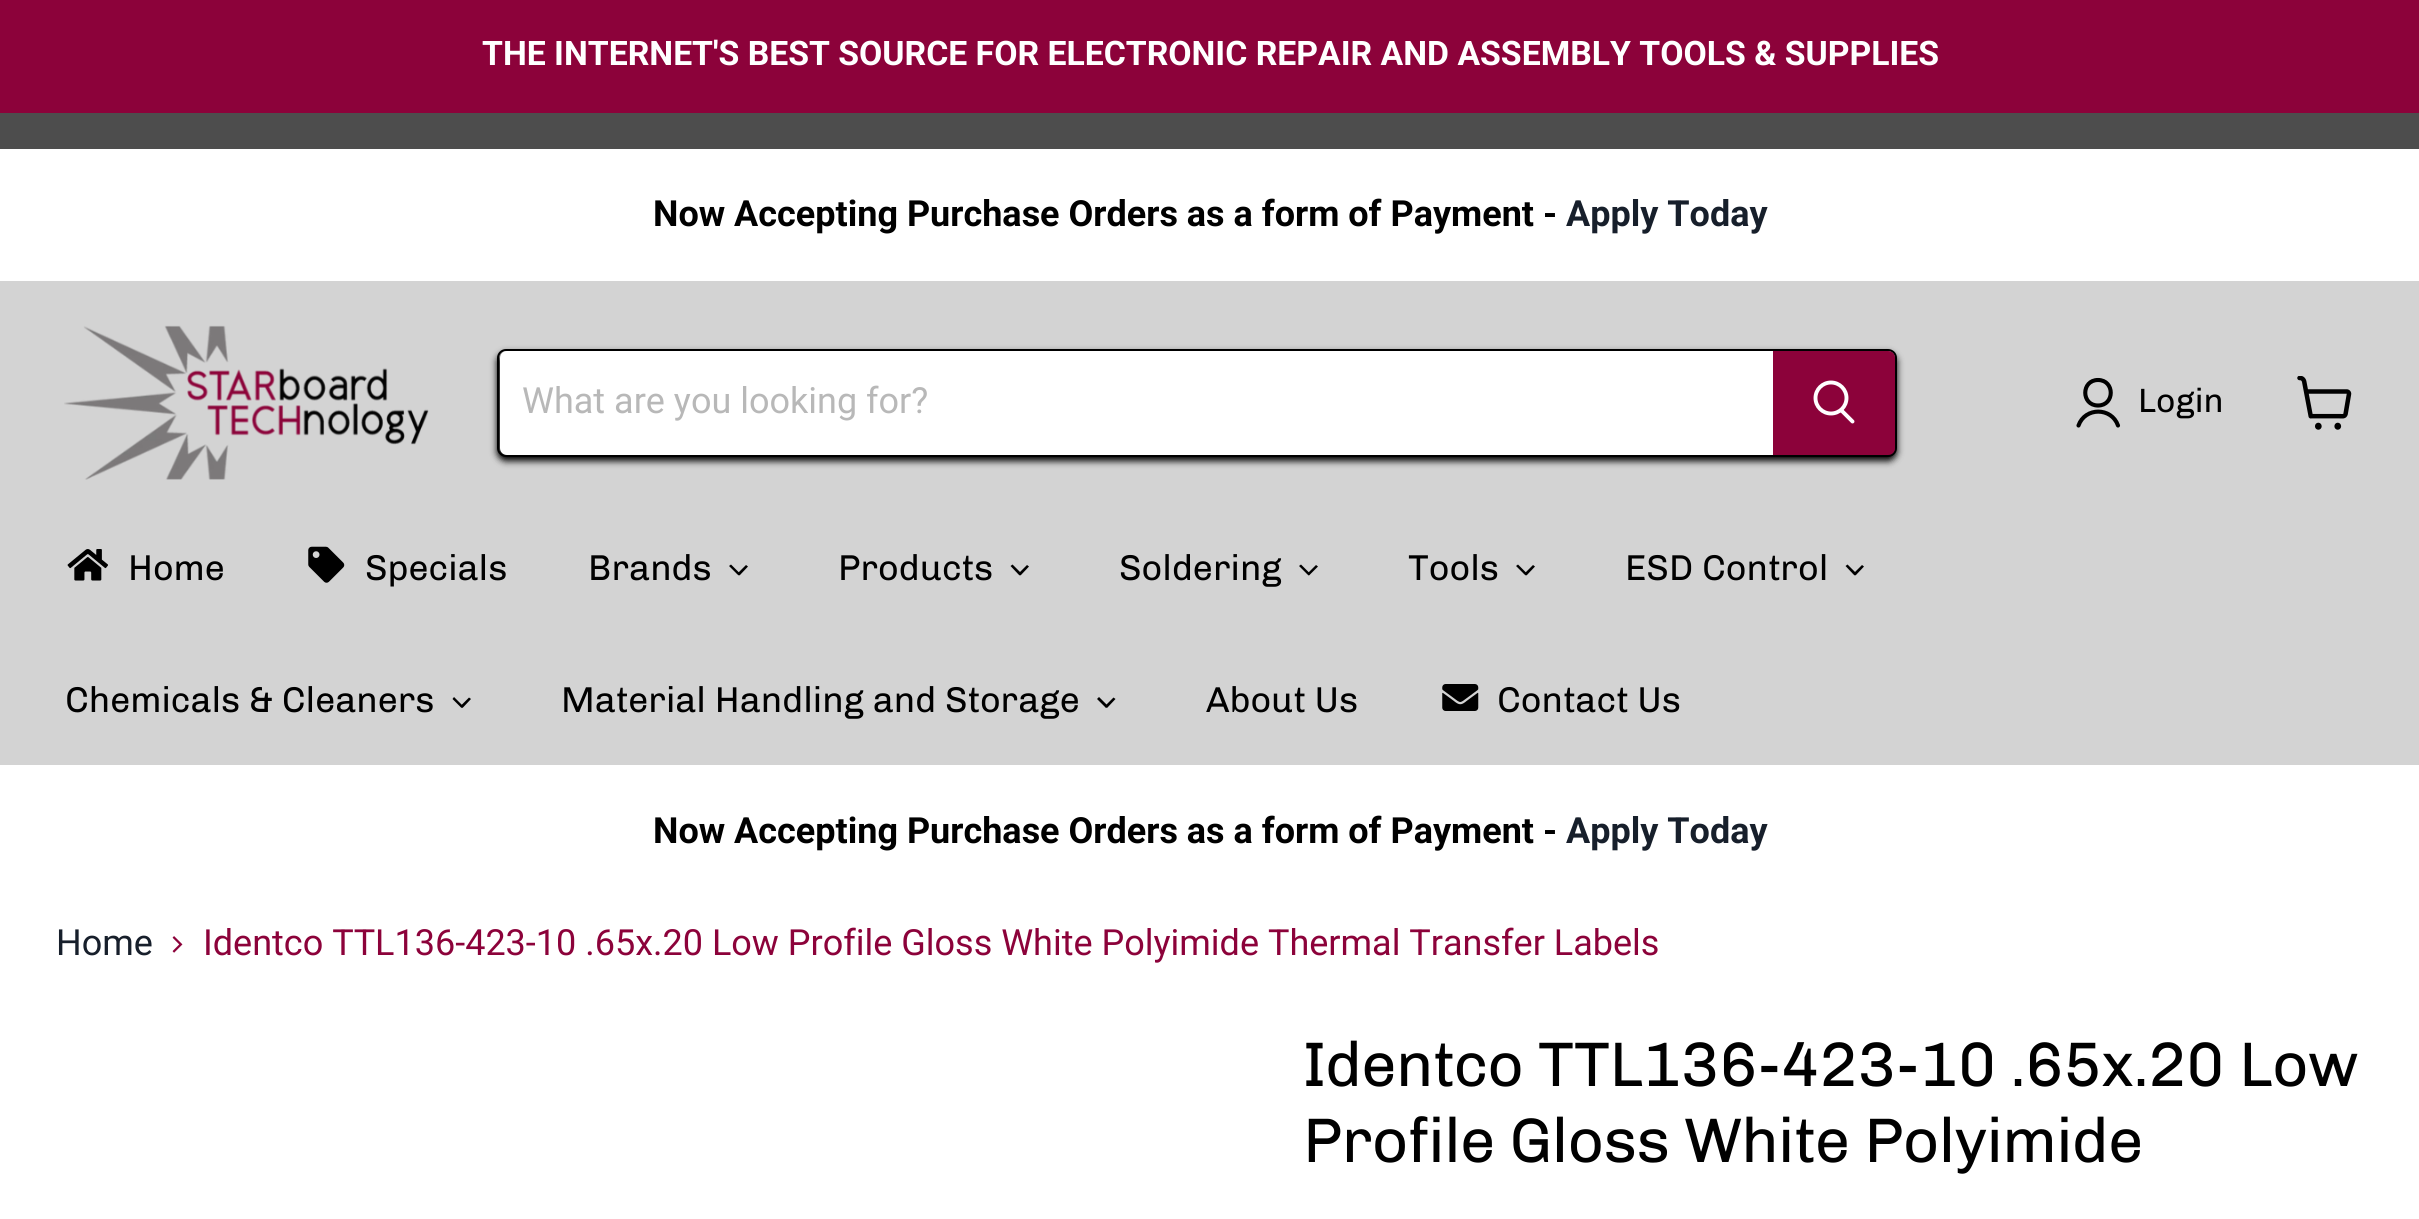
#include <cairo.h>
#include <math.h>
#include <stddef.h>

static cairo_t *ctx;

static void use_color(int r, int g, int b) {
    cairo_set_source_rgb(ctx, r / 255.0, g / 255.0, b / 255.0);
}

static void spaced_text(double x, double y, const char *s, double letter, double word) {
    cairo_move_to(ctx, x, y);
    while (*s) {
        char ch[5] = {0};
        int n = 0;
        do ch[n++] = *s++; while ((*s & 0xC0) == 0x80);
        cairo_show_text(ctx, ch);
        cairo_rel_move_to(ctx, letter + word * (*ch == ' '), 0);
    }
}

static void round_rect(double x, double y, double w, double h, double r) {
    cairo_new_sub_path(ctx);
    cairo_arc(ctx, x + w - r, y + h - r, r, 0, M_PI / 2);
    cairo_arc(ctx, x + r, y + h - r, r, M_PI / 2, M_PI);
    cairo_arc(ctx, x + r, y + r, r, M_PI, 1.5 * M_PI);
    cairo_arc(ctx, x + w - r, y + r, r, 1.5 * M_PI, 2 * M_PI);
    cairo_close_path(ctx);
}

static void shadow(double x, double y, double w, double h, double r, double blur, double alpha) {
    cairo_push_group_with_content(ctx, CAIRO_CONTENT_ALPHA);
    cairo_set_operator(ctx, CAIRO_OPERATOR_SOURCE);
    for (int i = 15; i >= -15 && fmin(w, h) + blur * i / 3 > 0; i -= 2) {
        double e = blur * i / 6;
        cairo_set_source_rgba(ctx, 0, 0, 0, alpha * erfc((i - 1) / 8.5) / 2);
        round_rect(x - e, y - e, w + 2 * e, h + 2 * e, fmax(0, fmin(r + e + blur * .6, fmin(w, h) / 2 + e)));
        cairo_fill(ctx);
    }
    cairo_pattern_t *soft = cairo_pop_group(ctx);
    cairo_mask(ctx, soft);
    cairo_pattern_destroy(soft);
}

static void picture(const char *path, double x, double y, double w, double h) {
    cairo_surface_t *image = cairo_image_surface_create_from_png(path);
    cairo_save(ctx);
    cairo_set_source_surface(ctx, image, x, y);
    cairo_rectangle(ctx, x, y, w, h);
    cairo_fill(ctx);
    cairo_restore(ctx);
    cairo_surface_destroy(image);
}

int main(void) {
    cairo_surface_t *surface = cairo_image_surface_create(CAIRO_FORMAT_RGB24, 2419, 1219);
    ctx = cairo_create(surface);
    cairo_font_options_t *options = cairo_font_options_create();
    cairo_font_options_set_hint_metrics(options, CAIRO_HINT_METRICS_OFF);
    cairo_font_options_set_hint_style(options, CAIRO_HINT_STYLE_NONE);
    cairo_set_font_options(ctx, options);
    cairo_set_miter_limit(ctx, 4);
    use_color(255, 255, 255);
    cairo_paint(ctx);
    use_color(140, 2, 58);
    cairo_rectangle(ctx, 0, 0, 2419, 113);
    cairo_fill(ctx);
    cairo_select_font_face(ctx, "Roboto", CAIRO_FONT_SLANT_NORMAL, CAIRO_FONT_WEIGHT_BOLD);
    cairo_set_font_size(ctx, 33.75);
    use_color(255, 255, 255);
    cairo_move_to(ctx, 482, 65);
    cairo_show_text(ctx, "THE INTERNET'S BEST SOURCE FOR ELECTRONIC REPAIR AND ASSEMBLY TOOLS & SUPPLIES");
    use_color(77, 77, 77);
    cairo_rectangle(ctx, 0, 113, 2419, 36);
    cairo_fill(ctx);
    cairo_set_font_size(ctx, 36);
    use_color(0, 0, 0);
    cairo_move_to(ctx, 653, 226);
    cairo_show_text(ctx, "Now Accepting Purchase Orders as a form of Payment -");
    use_color(23, 31, 43);
    cairo_move_to(ctx, 1566, 226);
    cairo_show_text(ctx, "Apply Today");
    use_color(211, 211, 211);
    cairo_rectangle(ctx, 0, 281, 2419, 484);
    cairo_fill(ctx);
    picture("img1.png", 64, 325, 365, 155);
    use_color(0, 0, 0);
    shadow(497, 353, 1400, 108, 9, 3.5, 1);
    round_rect(498, 350, 1398, 106, 8);
    use_color(0, 0, 0);
    cairo_stroke(ctx);
    use_color(255, 255, 255);
    cairo_new_path(ctx);
    cairo_move_to(ctx, 507, 351);
    cairo_line_to(ctx, 1773, 351);
    cairo_line_to(ctx, 1773, 455);
    cairo_line_to(ctx, 507, 455);
    cairo_curve_to(ctx, 503, 455, 500, 452, 500, 448);
    cairo_line_to(ctx, 500, 358);
    cairo_curve_to(ctx, 500, 354, 503, 351, 507, 351);
    cairo_close_path(ctx);
    cairo_fill(ctx);
    cairo_select_font_face(ctx, "Roboto", CAIRO_FONT_SLANT_NORMAL, CAIRO_FONT_WEIGHT_NORMAL);
    use_color(184, 184, 184);
    cairo_move_to(ctx, 522, 413);
    cairo_show_text(ctx, "What are you looking for?");
    use_color(140, 2, 58);
    cairo_new_path(ctx);
    cairo_move_to(ctx, 1774, 352);
    cairo_line_to(ctx, 1888, 352);
    cairo_curve_to(ctx, 1891.5, 352, 1894, 354.5, 1894, 358);
    cairo_line_to(ctx, 1894, 448);
    cairo_curve_to(ctx, 1894, 451.5, 1891.5, 454, 1888, 454);
    cairo_line_to(ctx, 1774, 454);
    cairo_close_path(ctx);
    cairo_fill_preserve(ctx);
    cairo_stroke(ctx);
    cairo_new_path(ctx);
    cairo_move_to(ctx, 1852.5, 421.5);
    cairo_line_to(ctx, 1841.5, 410.5);
    use_color(255, 255, 255);
    cairo_set_line_width(ctx, 3.9);
    cairo_set_line_cap(ctx, CAIRO_LINE_CAP_ROUND);
    cairo_stroke(ctx);
    cairo_arc(ctx, 1831, 398, 15.5, 0, 2 * M_PI);
    cairo_set_line_cap(ctx, CAIRO_LINE_CAP_BUTT);
    cairo_stroke(ctx);
    cairo_new_path(ctx);
    cairo_move_to(ctx, 2098, 405.5);
    cairo_curve_to(ctx, 2115, 405.5, 2115, 380, 2098, 380);
    cairo_curve_to(ctx, 2081, 380, 2081, 405.5, 2098, 405.5);
    cairo_close_path(ctx);
    cairo_move_to(ctx, 2118, 425.5);
    cairo_curve_to(ctx, 2111.5, 407, 2085, 407, 2078.5, 425.5);
    use_color(0, 0, 0);
    cairo_set_line_width(ctx, 4.1);
    cairo_set_line_cap(ctx, CAIRO_LINE_CAP_ROUND);
    cairo_set_line_join(ctx, CAIRO_LINE_JOIN_ROUND);
    cairo_stroke(ctx);
    cairo_select_font_face(ctx, "Chivo", CAIRO_FONT_SLANT_NORMAL, CAIRO_FONT_WEIGHT_NORMAL);
    cairo_set_font_size(ctx, 33.75);
    cairo_move_to(ctx, 2138, 412);
    cairo_show_text(ctx, "Login");
    picture("img2.png", 2297, 376, 55, 54);
    picture("img3.png", 67, 549, 41, 32);
    cairo_set_font_size(ctx, 36);
    cairo_move_to(ctx, 128, 580);
    cairo_show_text(ctx, "Home");
    picture("img4.png", 308, 546, 37, 37);
    cairo_move_to(ctx, 365, 580);
    cairo_show_text(ctx, "Specials");
    cairo_move_to(ctx, 588, 580);
    cairo_show_text(ctx, "Brands");
    cairo_new_path(ctx);
    cairo_move_to(ctx, 746, 565);
    cairo_line_to(ctx, 748, 566.5);
    cairo_line_to(ctx, 739.5, 575.5);
    cairo_line_to(ctx, 737.5, 573.5);
    cairo_close_path(ctx);
    cairo_fill(ctx);
    cairo_new_path(ctx);
    cairo_move_to(ctx, 731, 564.5);
    cairo_line_to(ctx, 740, 573.5);
    cairo_line_to(ctx, 738.5, 575.5);
    cairo_line_to(ctx, 729, 566);
    cairo_close_path(ctx);
    cairo_fill(ctx);
    cairo_move_to(ctx, 838, 580);
    cairo_show_text(ctx, "Products");
    cairo_new_path(ctx);
    cairo_move_to(ctx, 1027, 565);
    cairo_line_to(ctx, 1029, 566.5);
    cairo_line_to(ctx, 1020.5, 575.5);
    cairo_line_to(ctx, 1018.5, 573.5);
    cairo_close_path(ctx);
    cairo_fill(ctx);
    cairo_new_path(ctx);
    cairo_move_to(ctx, 1012.5, 564.5);
    cairo_line_to(ctx, 1021.5, 573.5);
    cairo_line_to(ctx, 1019.5, 575.5);
    cairo_line_to(ctx, 1010.5, 566);
    cairo_close_path(ctx);
    cairo_fill(ctx);
    cairo_move_to(ctx, 1119, 580);
    cairo_show_text(ctx, "Soldering");
    cairo_new_path(ctx);
    cairo_move_to(ctx, 1316, 565);
    cairo_line_to(ctx, 1318, 566.5);
    cairo_line_to(ctx, 1309, 575.5);
    cairo_line_to(ctx, 1307.5, 573.5);
    cairo_close_path(ctx);
    cairo_fill(ctx);
    cairo_new_path(ctx);
    cairo_move_to(ctx, 1301, 564.5);
    cairo_line_to(ctx, 1310, 573.5);
    cairo_line_to(ctx, 1308.5, 575.5);
    cairo_line_to(ctx, 1299, 566);
    cairo_close_path(ctx);
    cairo_fill(ctx);
    cairo_move_to(ctx, 1408, 580);
    cairo_show_text(ctx, "Tools");
    cairo_new_path(ctx);
    cairo_move_to(ctx, 1533, 565);
    cairo_line_to(ctx, 1535, 566.5);
    cairo_line_to(ctx, 1526.5, 575.5);
    cairo_line_to(ctx, 1524.5, 573.5);
    cairo_close_path(ctx);
    cairo_fill(ctx);
    cairo_new_path(ctx);
    cairo_move_to(ctx, 1518, 564.5);
    cairo_line_to(ctx, 1527, 573.5);
    cairo_line_to(ctx, 1525.5, 575.5);
    cairo_line_to(ctx, 1516, 566);
    cairo_close_path(ctx);
    cairo_fill(ctx);
    cairo_move_to(ctx, 1625, 580);
    cairo_show_text(ctx, "ESD Control");
    cairo_new_path(ctx);
    cairo_move_to(ctx, 1862, 565);
    cairo_line_to(ctx, 1864, 566.5);
    cairo_line_to(ctx, 1855.5, 575.5);
    cairo_line_to(ctx, 1853.5, 573.5);
    cairo_close_path(ctx);
    cairo_fill(ctx);
    cairo_new_path(ctx);
    cairo_move_to(ctx, 1847.5, 564.5);
    cairo_line_to(ctx, 1856.5, 573.5);
    cairo_line_to(ctx, 1854.5, 575.5);
    cairo_line_to(ctx, 1845.5, 566);
    cairo_close_path(ctx);
    cairo_fill(ctx);
    cairo_move_to(ctx, 65, 712);
    cairo_show_text(ctx, "Chemicals & Cleaners");
    cairo_new_path(ctx);
    cairo_move_to(ctx, 469, 697.5);
    cairo_line_to(ctx, 471, 699);
    cairo_line_to(ctx, 462.5, 708);
    cairo_line_to(ctx, 460.5, 706);
    cairo_close_path(ctx);
    cairo_fill(ctx);
    cairo_new_path(ctx);
    cairo_move_to(ctx, 454, 697);
    cairo_line_to(ctx, 463, 706);
    cairo_line_to(ctx, 461.5, 708);
    cairo_line_to(ctx, 452.5, 699);
    cairo_close_path(ctx);
    cairo_fill(ctx);
    cairo_move_to(ctx, 561, 712);
    cairo_show_text(ctx, "Material Handling and Storage");
    cairo_new_path(ctx);
    cairo_move_to(ctx, 1113.5, 697.5);
    cairo_line_to(ctx, 1115.5, 699);
    cairo_line_to(ctx, 1107, 708);
    cairo_line_to(ctx, 1105, 706);
    cairo_close_path(ctx);
    cairo_fill(ctx);
    cairo_new_path(ctx);
    cairo_move_to(ctx, 1099, 697);
    cairo_line_to(ctx, 1108, 706);
    cairo_line_to(ctx, 1106, 708);
    cairo_line_to(ctx, 1097, 699);
    cairo_close_path(ctx);
    cairo_fill(ctx);
    cairo_move_to(ctx, 1206, 712);
    cairo_show_text(ctx, "About Us");
    picture("img5.png", 1442, 684, 37, 27);
    cairo_move_to(ctx, 1497, 712);
    cairo_show_text(ctx, "Contact Us");
    cairo_select_font_face(ctx, "Roboto", CAIRO_FONT_SLANT_NORMAL, CAIRO_FONT_WEIGHT_BOLD);
    cairo_move_to(ctx, 653, 843);
    cairo_show_text(ctx, "Now Accepting Purchase Orders as a form of Payment -");
    use_color(23, 31, 43);
    cairo_move_to(ctx, 1566, 843);
    cairo_show_text(ctx, "Apply Today");
    cairo_select_font_face(ctx, "Roboto", CAIRO_FONT_SLANT_NORMAL, CAIRO_FONT_WEIGHT_NORMAL);
    cairo_move_to(ctx, 56, 955);
    cairo_show_text(ctx, "Home");
    picture("img6.png", 172, 936, 11, 17);
    use_color(140, 2, 58);
    cairo_move_to(ctx, 203, 955);
    cairo_show_text(ctx, "Identco TTL136-423-10 .65x.20 Low Profile Gloss White Polyimide Thermal Transfer Labels");
    cairo_select_font_face(ctx, "Chivo", CAIRO_FONT_SLANT_NORMAL, CAIRO_FONT_WEIGHT_NORMAL);
    cairo_set_font_size(ctx, 63);
    use_color(0, 0, 0);
    spaced_text(1303, 1086, "Identco TTL136-423-10 .65x.20 Low", -0.6, 0);
    spaced_text(1303, 1162, "Profile Gloss White Polyimide", -0.6, 0);
    cairo_surface_write_to_png(surface, "result.png");
    cairo_font_options_destroy(options);
    cairo_destroy(ctx);
    cairo_surface_destroy(surface);
    return 0;
}
